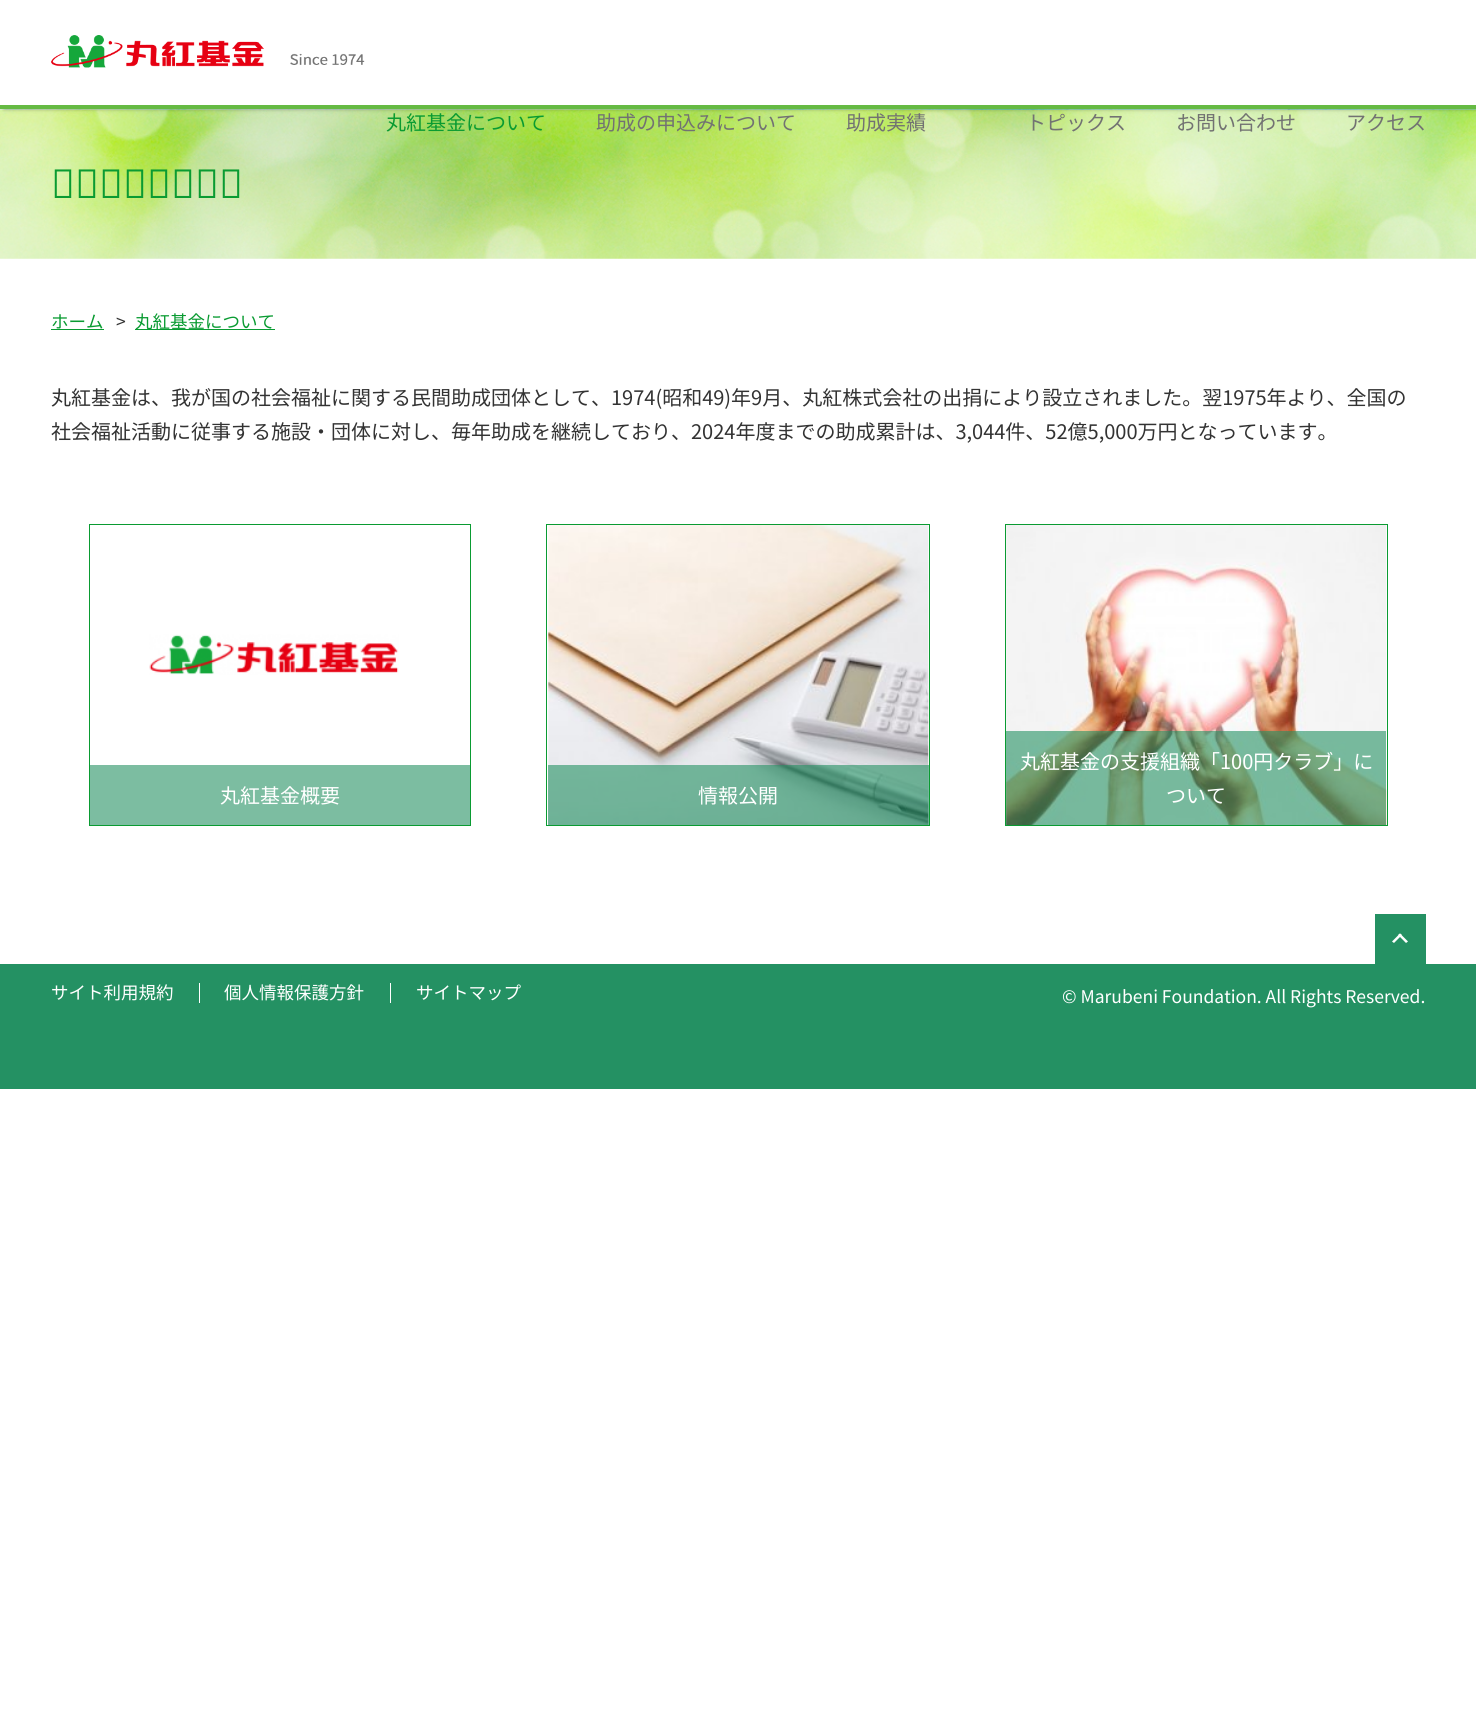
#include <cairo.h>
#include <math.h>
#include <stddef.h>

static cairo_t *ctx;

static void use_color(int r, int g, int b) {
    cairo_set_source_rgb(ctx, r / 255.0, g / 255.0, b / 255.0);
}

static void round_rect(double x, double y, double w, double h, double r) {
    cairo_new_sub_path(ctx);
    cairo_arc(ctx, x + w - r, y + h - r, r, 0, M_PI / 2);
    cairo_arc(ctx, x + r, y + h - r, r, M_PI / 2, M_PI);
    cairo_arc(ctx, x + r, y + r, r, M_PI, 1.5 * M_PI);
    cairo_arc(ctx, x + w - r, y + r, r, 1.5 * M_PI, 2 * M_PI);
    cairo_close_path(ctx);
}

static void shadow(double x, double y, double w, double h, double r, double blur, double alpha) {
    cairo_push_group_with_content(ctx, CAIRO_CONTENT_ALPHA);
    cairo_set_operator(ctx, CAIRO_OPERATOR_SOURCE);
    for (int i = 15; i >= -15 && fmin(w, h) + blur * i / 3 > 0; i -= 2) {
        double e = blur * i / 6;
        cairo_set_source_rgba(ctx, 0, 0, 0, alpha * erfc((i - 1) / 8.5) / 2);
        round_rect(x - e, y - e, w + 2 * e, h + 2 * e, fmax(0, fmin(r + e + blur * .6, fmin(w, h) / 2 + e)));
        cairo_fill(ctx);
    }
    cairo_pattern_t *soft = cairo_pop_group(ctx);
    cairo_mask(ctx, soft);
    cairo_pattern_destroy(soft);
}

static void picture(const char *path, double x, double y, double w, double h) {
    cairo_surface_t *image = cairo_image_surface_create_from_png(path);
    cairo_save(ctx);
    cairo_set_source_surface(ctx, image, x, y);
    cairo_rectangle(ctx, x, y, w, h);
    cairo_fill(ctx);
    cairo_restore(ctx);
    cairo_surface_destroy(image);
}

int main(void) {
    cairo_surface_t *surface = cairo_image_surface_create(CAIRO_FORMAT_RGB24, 1476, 1713);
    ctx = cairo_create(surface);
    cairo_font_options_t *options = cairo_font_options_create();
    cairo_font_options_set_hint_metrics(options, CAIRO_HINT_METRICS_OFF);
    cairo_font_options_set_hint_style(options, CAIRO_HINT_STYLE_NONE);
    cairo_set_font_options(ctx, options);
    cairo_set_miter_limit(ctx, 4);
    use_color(255, 255, 255);
    cairo_paint(ctx);
    picture("img2.png", 0, 109, 1476, 150);
    use_color(0, 0, 0);
    shadow(4, 0, 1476, 109, 0, 2, 0.4);
    use_color(255, 255, 255);
    cairo_rectangle(ctx, 0, 0, 1476, 105);
    cairo_fill(ctx);
    use_color(101, 186, 67);
    cairo_rectangle(ctx, 0, 105, 1476, 4);
    cairo_fill(ctx);
    picture("img1.png", 51, 35, 314, 33);
    cairo_select_font_face(ctx, "Noto Sans JP", CAIRO_FONT_SLANT_NORMAL, CAIRO_FONT_WEIGHT_NORMAL);
    cairo_set_font_size(ctx, 20);
    use_color(10, 155, 50);
    cairo_move_to(ctx, 386, 130);
    cairo_show_text(ctx, "丸紅基金について");
    use_color(114, 114, 114);
    cairo_move_to(ctx, 596, 130);
    cairo_show_text(ctx, "助成の申込みについて");
    cairo_move_to(ctx, 846, 130);
    cairo_show_text(ctx, "助成実績");
    cairo_move_to(ctx, 1026, 130);
    cairo_show_text(ctx, "トピックス");
    cairo_move_to(ctx, 1176, 130);
    cairo_show_text(ctx, "お問い合わせ");
    cairo_move_to(ctx, 1346, 130);
    cairo_show_text(ctx, "アクセス");
    cairo_select_font_face(ctx, "Noto Sans Thin", CAIRO_FONT_SLANT_NORMAL, CAIRO_FONT_WEIGHT_NORMAL);
    cairo_set_font_size(ctx, 40);
    use_color(10, 155, 50);
    cairo_move_to(ctx, 51, 198);
    cairo_show_text(ctx, "丸紅基金について");
    cairo_select_font_face(ctx, "Noto Sans JP", CAIRO_FONT_SLANT_NORMAL, CAIRO_FONT_WEIGHT_NORMAL);
    cairo_set_font_size(ctx, 17.5);
    cairo_move_to(ctx, 51, 328);
    cairo_show_text(ctx, "ホーム");
    cairo_rectangle(ctx, 51, 329, 53, 1);
    cairo_fill(ctx);
    use_color(51, 51, 51);
    cairo_move_to(ctx, 116, 328);
    cairo_show_text(ctx, ">");
    use_color(10, 155, 50);
    cairo_rectangle(ctx, 135, 329, 140, 1);
    cairo_fill(ctx);
    cairo_move_to(ctx, 135, 328);
    cairo_show_text(ctx, "丸紅基金について");
    cairo_set_font_size(ctx, 20);
    use_color(51, 51, 51);
    cairo_move_to(ctx, 51, 405);
    cairo_show_text(ctx, "丸紅基金は、我が国の社会福祉に関する民間助成団体として、1974(昭和49)年9月、丸紅株式会社の出捐により設立されました。翌1975年より、全国の");
    cairo_move_to(ctx, 51, 439);
    cairo_show_text(ctx, "社会福祉活動に従事する施設・団体に対し、毎年助成を継続しており、2024年度までの助成累計は、3,044件、52億5,000万円となっています。");
    cairo_rectangle(ctx, 89.5, 524.5, 381, 301);
    use_color(10, 155, 50);
    cairo_set_line_width(ctx, 1);
    cairo_stroke(ctx);
    picture("img3.png", 149, 634, 250, 41);
    use_color(124, 189, 161);
    cairo_rectangle(ctx, 90, 765, 380, 60);
    cairo_fill(ctx);
    use_color(255, 255, 255);
    cairo_move_to(ctx, 220, 803);
    cairo_show_text(ctx, "丸紅基金概要");
    cairo_rectangle(ctx, 546.5, 524.5, 383, 301);
    use_color(10, 155, 50);
    cairo_stroke(ctx);
    picture("img4.png", 548, 525, 381, 300);
    cairo_set_source_rgba(ctx, 0.141, 0.569, 0.388, 0.6);
    cairo_rectangle(ctx, 548, 765, 381, 60);
    cairo_fill(ctx);
    use_color(255, 255, 255);
    cairo_move_to(ctx, 698, 803);
    cairo_show_text(ctx, "情報公開");
    cairo_rectangle(ctx, 1005.5, 524.5, 382, 301);
    use_color(10, 155, 50);
    cairo_stroke(ctx);
    picture("img5.png", 1006, 525, 381, 300);
    cairo_set_source_rgba(ctx, 0.141, 0.569, 0.388, 0.6);
    cairo_rectangle(ctx, 1006, 731, 380, 94);
    cairo_fill(ctx);
    use_color(255, 255, 255);
    cairo_move_to(ctx, 1020, 769);
    cairo_show_text(ctx, "丸紅基金の支援組織「100円クラブ」に");
    cairo_move_to(ctx, 1166, 803);
    cairo_show_text(ctx, "ついて");
    use_color(36, 145, 99);
    cairo_rectangle(ctx, 0, 964, 1476, 125);
    cairo_fill(ctx);
    cairo_rectangle(ctx, 1375, 914, 51, 50);
    cairo_fill(ctx);
    use_color(255, 255, 255);
    cairo_new_path(ctx);
    cairo_move_to(ctx, 1400, 933.5);
    cairo_line_to(ctx, 1408, 941.5);
    cairo_line_to(ctx, 1406, 943);
    cairo_line_to(ctx, 1398, 935);
    cairo_close_path(ctx);
    cairo_fill(ctx);
    cairo_new_path(ctx);
    cairo_move_to(ctx, 1400, 933.5);
    cairo_line_to(ctx, 1402, 935);
    cairo_line_to(ctx, 1394, 943);
    cairo_line_to(ctx, 1392, 941.5);
    cairo_close_path(ctx);
    cairo_fill(ctx);
    cairo_rectangle(ctx, 199, 983, 1, 20);
    cairo_fill(ctx);
    cairo_set_font_size(ctx, 17.5);
    cairo_move_to(ctx, 51, 999);
    cairo_show_text(ctx, "サイト利用規約");
    cairo_rectangle(ctx, 390, 983, 1, 20);
    cairo_fill(ctx);
    cairo_move_to(ctx, 224, 999);
    cairo_show_text(ctx, "個人情報保護方針");
    cairo_move_to(ctx, 416, 999);
    cairo_show_text(ctx, "サイトマップ");
    cairo_move_to(ctx, 1062, 1003);
    cairo_show_text(ctx, "© Marubeni Foundation. All Rights Reserved.");
    cairo_surface_write_to_png(surface, "result.png");
    cairo_font_options_destroy(options);
    cairo_destroy(ctx);
    cairo_surface_destroy(surface);
    return 0;
}
